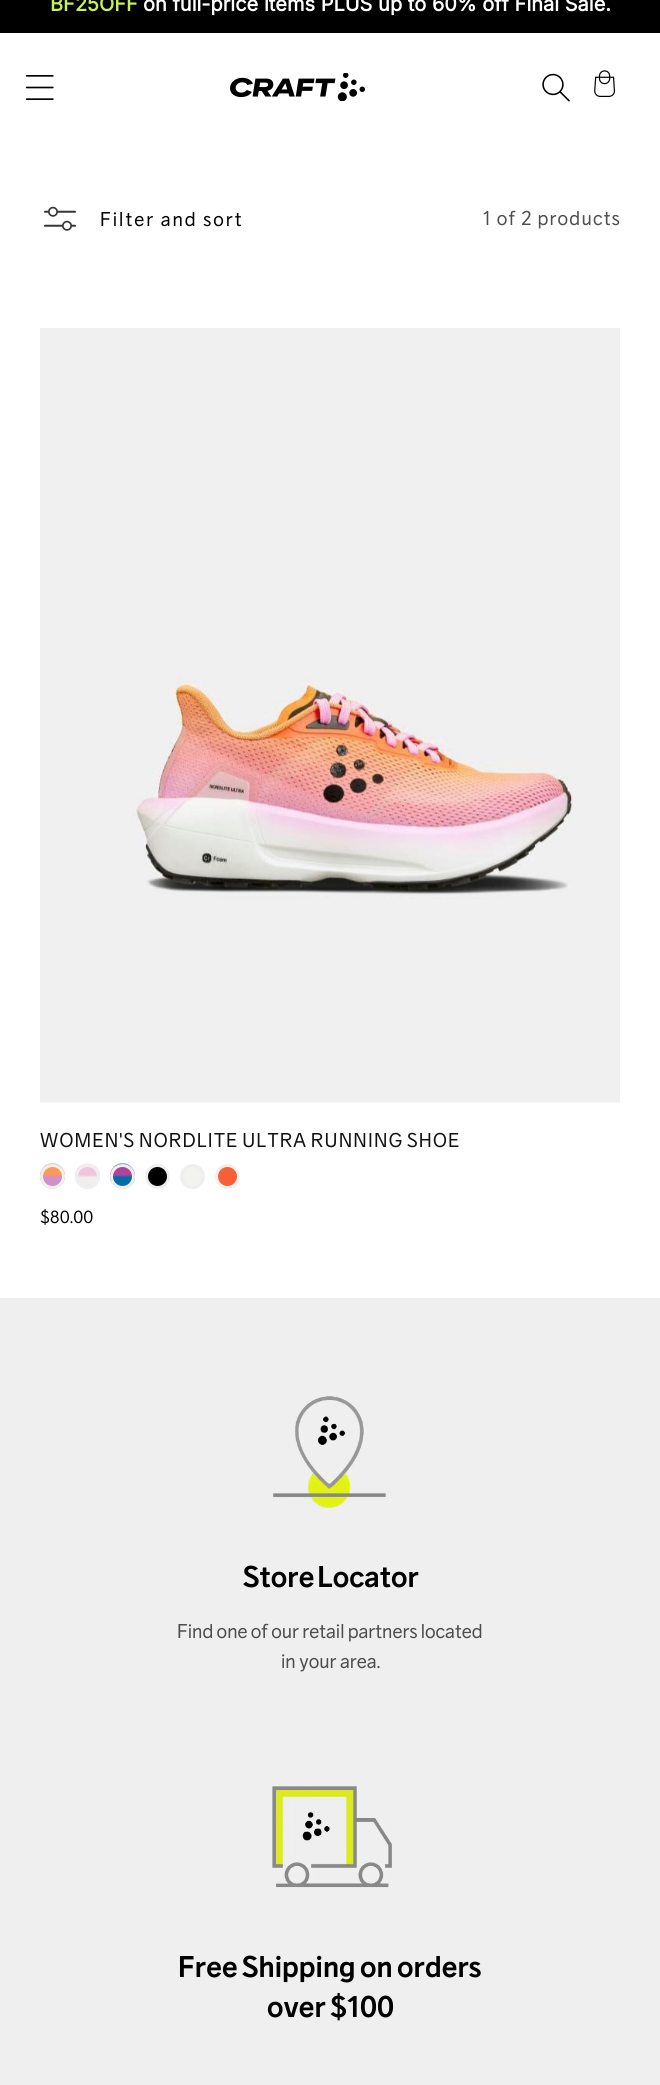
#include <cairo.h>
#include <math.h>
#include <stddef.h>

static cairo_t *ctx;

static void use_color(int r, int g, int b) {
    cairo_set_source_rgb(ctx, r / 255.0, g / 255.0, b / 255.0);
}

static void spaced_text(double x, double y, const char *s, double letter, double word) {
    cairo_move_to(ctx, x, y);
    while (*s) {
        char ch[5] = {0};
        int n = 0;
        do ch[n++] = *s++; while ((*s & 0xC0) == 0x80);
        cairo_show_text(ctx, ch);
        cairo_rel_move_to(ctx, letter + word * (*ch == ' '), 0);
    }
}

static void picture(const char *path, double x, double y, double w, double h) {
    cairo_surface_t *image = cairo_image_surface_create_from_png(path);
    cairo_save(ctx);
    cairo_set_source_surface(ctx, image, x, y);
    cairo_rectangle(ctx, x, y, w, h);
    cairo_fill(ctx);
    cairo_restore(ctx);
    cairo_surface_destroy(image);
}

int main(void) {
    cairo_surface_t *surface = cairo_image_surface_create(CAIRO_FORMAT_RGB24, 660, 2085);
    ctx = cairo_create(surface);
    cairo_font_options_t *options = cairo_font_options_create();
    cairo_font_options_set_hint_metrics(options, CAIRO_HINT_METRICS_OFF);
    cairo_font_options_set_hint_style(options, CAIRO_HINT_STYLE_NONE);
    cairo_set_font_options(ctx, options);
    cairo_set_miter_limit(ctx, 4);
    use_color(255, 255, 255);
    cairo_paint(ctx);
    use_color(0, 0, 0);
    cairo_rectangle(ctx, 0, 0, 660, 33);
    cairo_fill(ctx);
    cairo_select_font_face(ctx, "Inter", CAIRO_FONT_SLANT_NORMAL, CAIRO_FONT_WEIGHT_BOLD);
    cairo_set_font_size(ctx, 20);
    use_color(200, 240, 91);
    cairo_move_to(ctx, 50, 11);
    cairo_show_text(ctx, "BF25OFF");
    use_color(255, 255, 255);
    cairo_move_to(ctx, 143, 11);
    cairo_show_text(ctx, "on full-price items PLUS up to 60% off Final Sale.");
    picture("img1.png", 25, 75, 29, 25);
    picture("img2.png", 230, 73, 135, 28);
    picture("img3.png", 542, 73, 28, 29);
    picture("img4.png", 594, 70, 21, 27);
    picture("img5.png", 44, 206, 32, 25);
    cairo_select_font_face(ctx, "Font", CAIRO_FONT_SLANT_NORMAL, CAIRO_FONT_WEIGHT_NORMAL);
    use_color(0, 0, 0);
    spaced_text(100, 226, "Filter and sort", 2, 0);
    use_color(77, 77, 77);
    spaced_text(483, 225, "1 of 2 products", 1.2, 0);
    picture("img6.png", 40, 328, 580, 775);
    use_color(18, 18, 18);
    spaced_text(40, 1147, "WOMEN'S NORDLITE ULTRA RUNNING SHOE", 1.2, -1);
    picture("img7.png", 40, 1163, 25, 26);
    cairo_arc(ctx, 52.5, 1176.5, 11, 0, 2 * M_PI);
    use_color(239, 239, 239);
    cairo_set_line_width(ctx, 3);
    cairo_stroke(ctx);
    picture("img8.png", 75, 1163, 25, 26);
    cairo_arc(ctx, 87.5, 1176.5, 11, 0, 2 * M_PI);
    cairo_stroke(ctx);
    picture("img9.png", 110, 1163, 25, 26);
    cairo_arc(ctx, 122.5, 1176.5, 11, 0, 2 * M_PI);
    cairo_stroke(ctx);
    use_color(0, 0, 0);
    cairo_arc(ctx, 157.5, 1176.5, 11, 0, 2 * M_PI);
    cairo_fill_preserve(ctx);
    use_color(239, 239, 239);
    cairo_stroke(ctx);
    use_color(242, 242, 240);
    cairo_arc(ctx, 192.5, 1176.5, 11, 0, 2 * M_PI);
    cairo_fill_preserve(ctx);
    use_color(239, 239, 239);
    cairo_stroke(ctx);
    use_color(247, 96, 54);
    cairo_arc(ctx, 227.5, 1176.5, 11, 0, 2 * M_PI);
    cairo_fill_preserve(ctx);
    use_color(239, 239, 239);
    cairo_stroke(ctx);
    cairo_select_font_face(ctx, "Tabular", CAIRO_FONT_SLANT_NORMAL, CAIRO_FONT_WEIGHT_NORMAL);
    cairo_set_font_size(ctx, 17.5);
    use_color(0, 0, 0);
    cairo_move_to(ctx, 40, 1223);
    cairo_show_text(ctx, "$80.00");
    use_color(239, 239, 239);
    cairo_rectangle(ctx, 0, 1298, 660, 787);
    cairo_fill(ctx);
    picture("img10.png", 273, 1396, 113, 113);
    cairo_select_font_face(ctx, "Font", CAIRO_FONT_SLANT_NORMAL, CAIRO_FONT_WEIGHT_BOLD);
    cairo_set_font_size(ctx, 30);
    use_color(0, 0, 0);
    spaced_text(243, 1587, "Store Locator", 0, -2);
    cairo_select_font_face(ctx, "Font", CAIRO_FONT_SLANT_NORMAL, CAIRO_FONT_WEIGHT_NORMAL);
    cairo_set_font_size(ctx, 20);
    use_color(77, 77, 77);
    spaced_text(177, 1638, "Find one of our retail partners located", 0, -0.25);
    cairo_move_to(ctx, 281, 1668);
    cairo_show_text(ctx, "in your area.");
    picture("img11.png", 272, 1786, 120, 102);
    cairo_select_font_face(ctx, "Font", CAIRO_FONT_SLANT_NORMAL, CAIRO_FONT_WEIGHT_BOLD);
    cairo_set_font_size(ctx, 30);
    use_color(0, 0, 0);
    spaced_text(178, 1977, "Free Shipping on orders", 0, -0.5);
    spaced_text(267, 2017, "over $100", 0, -1);
    cairo_surface_write_to_png(surface, "result.png");
    cairo_font_options_destroy(options);
    cairo_destroy(ctx);
    cairo_surface_destroy(surface);
    return 0;
}
